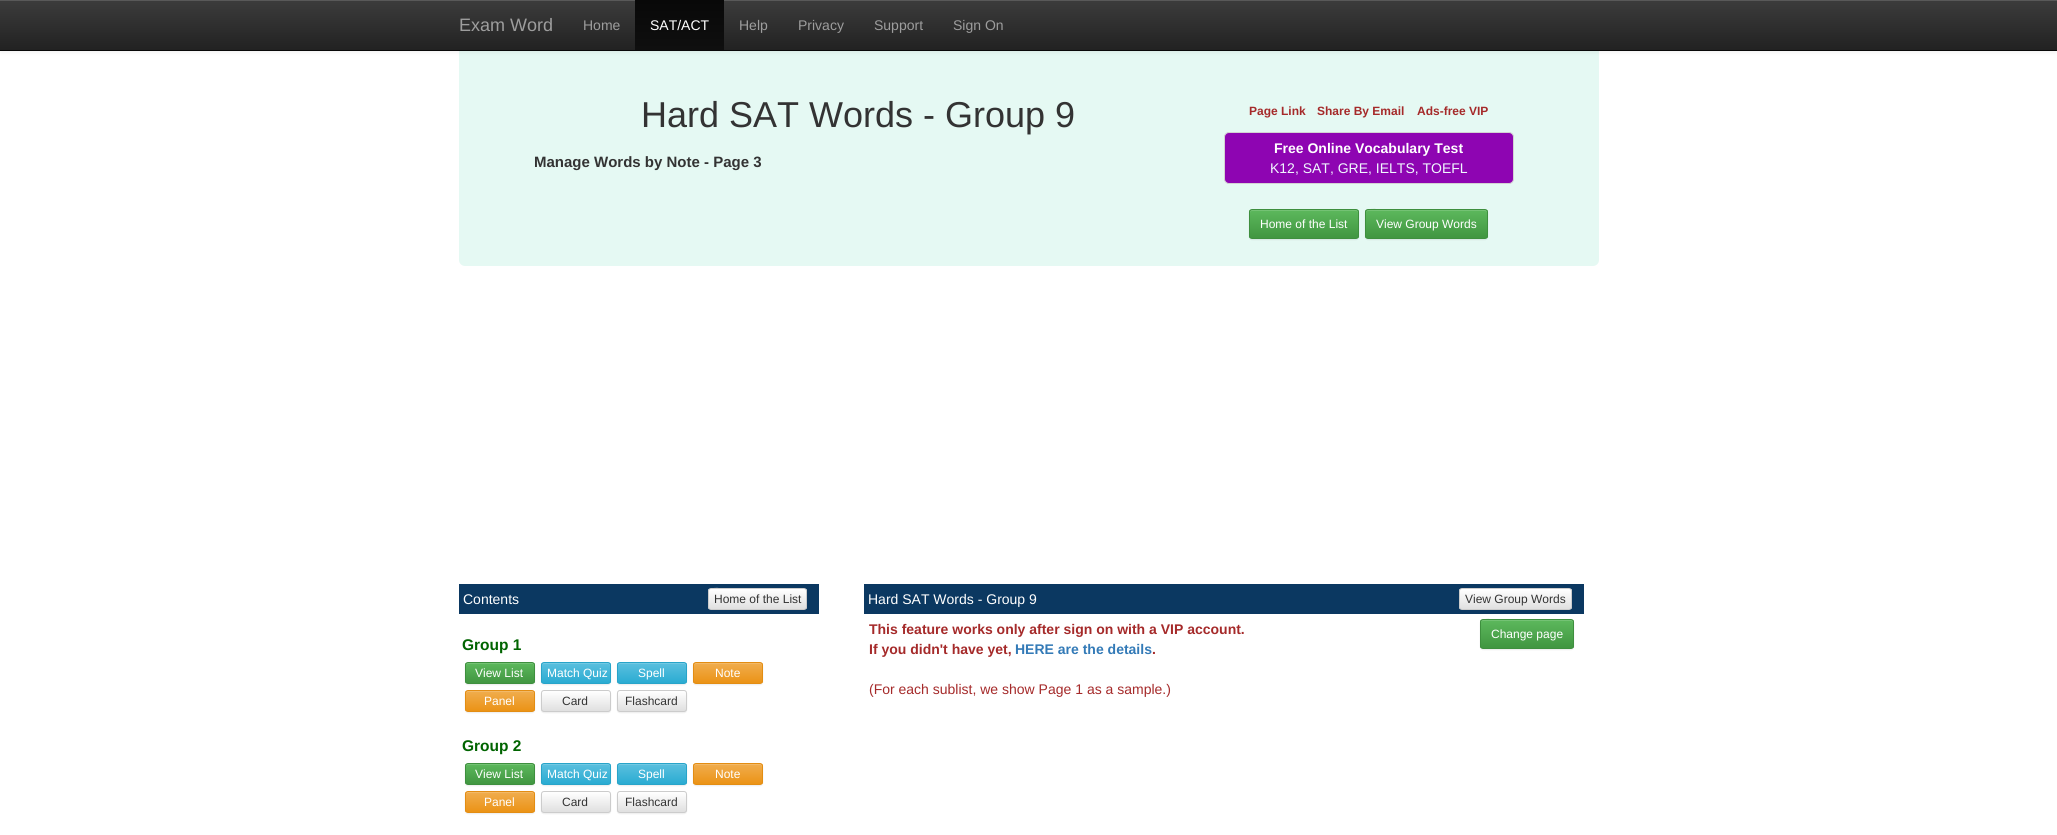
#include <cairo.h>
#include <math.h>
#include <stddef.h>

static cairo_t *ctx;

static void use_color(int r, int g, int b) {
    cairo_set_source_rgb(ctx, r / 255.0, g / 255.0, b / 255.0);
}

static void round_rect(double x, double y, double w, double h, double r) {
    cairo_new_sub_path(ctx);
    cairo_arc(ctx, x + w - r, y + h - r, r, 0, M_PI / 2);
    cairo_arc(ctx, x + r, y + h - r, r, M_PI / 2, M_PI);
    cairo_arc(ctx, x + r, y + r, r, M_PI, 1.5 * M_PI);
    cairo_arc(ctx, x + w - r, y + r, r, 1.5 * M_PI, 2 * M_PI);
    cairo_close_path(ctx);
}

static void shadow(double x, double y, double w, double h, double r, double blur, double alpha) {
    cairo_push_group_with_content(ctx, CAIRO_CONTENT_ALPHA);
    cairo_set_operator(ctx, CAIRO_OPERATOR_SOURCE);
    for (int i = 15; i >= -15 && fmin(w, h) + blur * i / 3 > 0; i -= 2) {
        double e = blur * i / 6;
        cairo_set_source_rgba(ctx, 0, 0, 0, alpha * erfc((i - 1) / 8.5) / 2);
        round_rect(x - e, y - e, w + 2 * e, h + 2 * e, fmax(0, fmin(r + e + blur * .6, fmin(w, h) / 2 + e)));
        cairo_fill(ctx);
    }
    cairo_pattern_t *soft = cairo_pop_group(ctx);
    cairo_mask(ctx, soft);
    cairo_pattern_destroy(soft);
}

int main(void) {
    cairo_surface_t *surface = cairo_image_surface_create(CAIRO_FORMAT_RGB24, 2057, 835);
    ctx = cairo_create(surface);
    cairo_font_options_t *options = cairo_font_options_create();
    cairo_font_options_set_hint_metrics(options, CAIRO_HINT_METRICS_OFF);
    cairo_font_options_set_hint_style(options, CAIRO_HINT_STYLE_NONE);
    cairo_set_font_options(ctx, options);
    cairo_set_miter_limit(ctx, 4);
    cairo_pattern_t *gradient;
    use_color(255, 255, 255);
    cairo_paint(ctx);
    use_color(229, 249, 243);
    round_rect(459, 0, 1140, 266, 6);
    cairo_fill(ctx);
    use_color(0, 0, 0);
    shadow(0, 1, 2057, 51, 0, 2.5, 0.07);
    gradient = cairo_pattern_create_linear(1029, 0, 1029, 50);
    cairo_pattern_add_color_stop_rgba(gradient, 0, 0.235, 0.235, 0.235, 1);
    cairo_pattern_add_color_stop_rgba(gradient, 1, 0.133, 0.133, 0.133, 1);
    cairo_set_source(ctx, gradient);
    cairo_pattern_destroy(gradient);
    cairo_rectangle(ctx, 0, 1, 2057, 49);
    cairo_fill(ctx);
    use_color(89, 89, 89);
    cairo_rectangle(ctx, 0, 0, 2057, 1);
    cairo_fill(ctx);
    use_color(8, 8, 8);
    cairo_rectangle(ctx, 0, 50, 2057, 1);
    cairo_fill(ctx);
    cairo_select_font_face(ctx, "Liberation Sans", CAIRO_FONT_SLANT_NORMAL, CAIRO_FONT_WEIGHT_NORMAL);
    cairo_set_font_size(ctx, 18);
    use_color(157, 157, 157);
    cairo_move_to(ctx, 459, 31);
    cairo_show_text(ctx, "Exam Word");
    cairo_set_font_size(ctx, 14);
    cairo_move_to(ctx, 583, 30);
    cairo_show_text(ctx, "Home");
    gradient = cairo_pattern_create_linear(680, 0, 680, 50);
    cairo_pattern_add_color_stop_rgba(gradient, 0, 0.031, 0.031, 0.031, 1);
    cairo_pattern_add_color_stop_rgba(gradient, 1, 0.059, 0.059, 0.059, 1);
    cairo_set_source(ctx, gradient);
    cairo_pattern_destroy(gradient);
    cairo_rectangle(ctx, 635, 0, 89, 50);
    cairo_fill(ctx);
    use_color(255, 255, 255);
    cairo_move_to(ctx, 650, 30);
    cairo_show_text(ctx, "SAT/ACT");
    use_color(157, 157, 157);
    cairo_move_to(ctx, 739, 30);
    cairo_show_text(ctx, "Help");
    cairo_move_to(ctx, 798, 30);
    cairo_show_text(ctx, "Privacy");
    cairo_move_to(ctx, 874, 30);
    cairo_show_text(ctx, "Support");
    cairo_move_to(ctx, 953, 30);
    cairo_show_text(ctx, "Sign On");
    cairo_set_font_size(ctx, 36);
    use_color(51, 51, 51);
    cairo_move_to(ctx, 641, 127);
    cairo_show_text(ctx, "Hard SAT Words - Group 9");
    cairo_select_font_face(ctx, "Liberation Sans", CAIRO_FONT_SLANT_NORMAL, CAIRO_FONT_WEIGHT_BOLD);
    cairo_set_font_size(ctx, 15);
    cairo_move_to(ctx, 534, 167);
    cairo_show_text(ctx, "Manage Words by Note - Page 3");
    cairo_set_font_size(ctx, 12);
    use_color(165, 42, 42);
    cairo_move_to(ctx, 1249, 115);
    cairo_show_text(ctx, "Page Link");
    cairo_move_to(ctx, 1317, 115);
    cairo_show_text(ctx, "Share By Email");
    cairo_move_to(ctx, 1417, 115);
    cairo_show_text(ctx, "Ads-free VIP");
    use_color(142, 5, 178);
    round_rect(1224.5, 132.5, 289, 51, 4.5);
    cairo_fill_preserve(ctx);
    use_color(211, 211, 211);
    cairo_set_line_width(ctx, 1);
    cairo_stroke(ctx);
    cairo_set_font_size(ctx, 14);
    use_color(255, 255, 255);
    cairo_move_to(ctx, 1274, 153);
    cairo_show_text(ctx, "Free Online Vocabulary Test");
    cairo_select_font_face(ctx, "Liberation Sans", CAIRO_FONT_SLANT_NORMAL, CAIRO_FONT_WEIGHT_NORMAL);
    use_color(240, 248, 255);
    cairo_move_to(ctx, 1270, 173);
    cairo_show_text(ctx, "K12, SAT, GRE, IELTS, TOEFL");
    use_color(0, 0, 0);
    shadow(1249, 210, 110, 30, 3, 0.5, 0.07);
    cairo_save(ctx);
    round_rect(1249, 209, 110, 30, 3);
    cairo_clip(ctx);
    gradient = cairo_pattern_create_linear(1304, 210, 1304, 238);
    cairo_pattern_add_color_stop_rgba(gradient, 0, 0.361, 0.722, 0.361, 1);
    cairo_pattern_add_color_stop_rgba(gradient, 1, 0.255, 0.588, 0.255, 1);
    cairo_set_source(ctx, gradient);
    cairo_pattern_destroy(gradient);
    cairo_rectangle(ctx, 1249, 210, 110, 28);
    cairo_fill(ctx);
    cairo_restore(ctx);
    use_color(116, 194, 116);
    cairo_new_path(ctx);
    cairo_move_to(ctx, 1252, 211);
    cairo_line_to(ctx, 1356, 211);
    cairo_curve_to(ctx, 1357, 211, 1358, 212, 1358, 213);
    cairo_curve_to(ctx, 1358, 212, 1358, 210, 1356, 210);
    cairo_line_to(ctx, 1252, 210);
    cairo_curve_to(ctx, 1250, 210, 1250, 212, 1250, 213);
    cairo_curve_to(ctx, 1250, 212, 1251, 211, 1252, 211);
    cairo_close_path(ctx);
    cairo_fill(ctx);
    round_rect(1249.5, 209.5, 109, 29, 2.5);
    use_color(62, 143, 62);
    cairo_stroke(ctx);
    cairo_set_font_size(ctx, 12);
    use_color(255, 255, 255);
    cairo_move_to(ctx, 1260, 228);
    cairo_show_text(ctx, "Home of the List");
    use_color(0, 0, 0);
    shadow(1365, 210, 123, 30, 3, 0.5, 0.07);
    cairo_save(ctx);
    round_rect(1365, 209, 123, 30, 3);
    cairo_clip(ctx);
    gradient = cairo_pattern_create_linear(1427, 210, 1427, 238);
    cairo_pattern_add_color_stop_rgba(gradient, 0, 0.361, 0.722, 0.361, 1);
    cairo_pattern_add_color_stop_rgba(gradient, 1, 0.255, 0.588, 0.255, 1);
    cairo_set_source(ctx, gradient);
    cairo_pattern_destroy(gradient);
    cairo_rectangle(ctx, 1365, 210, 123, 28);
    cairo_fill(ctx);
    cairo_restore(ctx);
    use_color(116, 194, 116);
    cairo_new_path(ctx);
    cairo_move_to(ctx, 1368, 211);
    cairo_line_to(ctx, 1485, 211);
    cairo_line_to(ctx, 1487, 212);
    cairo_line_to(ctx, 1487, 213);
    cairo_curve_to(ctx, 1487, 212, 1487, 211, 1486, 210);
    cairo_line_to(ctx, 1388, 210);
    cairo_curve_to(ctx, 1381, 210, 1366, 206, 1366, 213);
    cairo_curve_to(ctx, 1366, 212, 1367, 211, 1368, 211);
    cairo_close_path(ctx);
    cairo_fill(ctx);
    round_rect(1365.5, 209.5, 122, 29, 2.5);
    use_color(62, 143, 62);
    cairo_stroke(ctx);
    use_color(255, 255, 255);
    cairo_move_to(ctx, 1376, 228);
    cairo_show_text(ctx, "View Group Words");
    use_color(11, 56, 97);
    cairo_rectangle(ctx, 459, 584, 360, 30);
    cairo_fill(ctx);
    cairo_set_font_size(ctx, 14);
    use_color(255, 255, 255);
    cairo_move_to(ctx, 463, 604);
    cairo_show_text(ctx, "Contents");
    cairo_save(ctx);
    round_rect(708, 588, 99, 22, 3);
    cairo_clip(ctx);
    gradient = cairo_pattern_create_linear(758, 589, 758, 609);
    cairo_pattern_add_color_stop_rgba(gradient, 0, 1, 1, 1, 1);
    cairo_pattern_add_color_stop_rgba(gradient, 1, 0.878, 0.878, 0.878, 1);
    cairo_set_source(ctx, gradient);
    cairo_pattern_destroy(gradient);
    cairo_rectangle(ctx, 708, 589, 99, 20);
    cairo_fill(ctx);
    cairo_restore(ctx);
    use_color(254, 254, 254);
    cairo_new_path(ctx);
    cairo_move_to(ctx, 711, 590);
    cairo_line_to(ctx, 804, 590);
    cairo_curve_to(ctx, 805, 590, 806, 591, 806, 592);
    cairo_curve_to(ctx, 806, 591, 806, 589, 804, 589);
    cairo_line_to(ctx, 726, 589);
    cairo_curve_to(ctx, 725, 589, 709, 585, 709, 592);
    cairo_curve_to(ctx, 709, 591, 710, 590, 711, 590);
    cairo_close_path(ctx);
    cairo_fill(ctx);
    round_rect(708.5, 588.5, 98, 21, 2.5);
    use_color(204, 204, 204);
    cairo_stroke(ctx);
    cairo_set_font_size(ctx, 12);
    use_color(51, 51, 51);
    cairo_move_to(ctx, 714, 603);
    cairo_show_text(ctx, "Home of the List");
    cairo_select_font_face(ctx, "Liberation Sans", CAIRO_FONT_SLANT_NORMAL, CAIRO_FONT_WEIGHT_BOLD);
    cairo_set_font_size(ctx, 15.5);
    use_color(0, 100, 0);
    cairo_move_to(ctx, 462, 650);
    cairo_show_text(ctx, "Group 1");
    use_color(0, 0, 0);
    shadow(465, 663, 70, 22, 3, 0.5, 0.07);
    cairo_save(ctx);
    round_rect(465, 662, 70, 22, 3);
    cairo_clip(ctx);
    gradient = cairo_pattern_create_linear(500, 663, 500, 683);
    cairo_pattern_add_color_stop_rgba(gradient, 0, 0.361, 0.722, 0.361, 1);
    cairo_pattern_add_color_stop_rgba(gradient, 1, 0.255, 0.588, 0.255, 1);
    cairo_set_source(ctx, gradient);
    cairo_pattern_destroy(gradient);
    cairo_rectangle(ctx, 465, 663, 70, 20);
    cairo_fill(ctx);
    cairo_restore(ctx);
    use_color(116, 194, 116);
    cairo_new_path(ctx);
    cairo_move_to(ctx, 468, 664);
    cairo_line_to(ctx, 533, 664);
    cairo_line_to(ctx, 534, 666);
    cairo_curve_to(ctx, 534, 660, 525, 663, 521, 663);
    cairo_line_to(ctx, 479, 663);
    cairo_curve_to(ctx, 475, 663, 466, 660, 466, 666);
    cairo_curve_to(ctx, 466, 665, 467, 664, 468, 664);
    cairo_close_path(ctx);
    cairo_fill(ctx);
    round_rect(465.5, 662.5, 69, 21, 2.5);
    use_color(62, 143, 62);
    cairo_stroke(ctx);
    cairo_select_font_face(ctx, "Liberation Sans", CAIRO_FONT_SLANT_NORMAL, CAIRO_FONT_WEIGHT_NORMAL);
    cairo_set_font_size(ctx, 12);
    use_color(255, 255, 255);
    cairo_move_to(ctx, 475, 677);
    cairo_show_text(ctx, "View List");
    use_color(0, 0, 0);
    shadow(541, 663, 70, 22, 3, 0.5, 0.07);
    cairo_save(ctx);
    round_rect(541, 662, 70, 22, 3);
    cairo_clip(ctx);
    gradient = cairo_pattern_create_linear(576, 663, 576, 683);
    cairo_pattern_add_color_stop_rgba(gradient, 0, 0.357, 0.753, 0.871, 1);
    cairo_pattern_add_color_stop_rgba(gradient, 1, 0.165, 0.671, 0.824, 1);
    cairo_set_source(ctx, gradient);
    cairo_pattern_destroy(gradient);
    cairo_rectangle(ctx, 541, 663, 70, 20);
    cairo_fill(ctx);
    cairo_restore(ctx);
    use_color(115, 201, 227);
    cairo_new_path(ctx);
    cairo_move_to(ctx, 544, 664);
    cairo_line_to(ctx, 609, 664);
    cairo_line_to(ctx, 610, 666);
    cairo_curve_to(ctx, 610, 660, 601, 663, 597, 663);
    cairo_line_to(ctx, 555, 663);
    cairo_curve_to(ctx, 551, 663, 542, 660, 542, 666);
    cairo_curve_to(ctx, 542, 665, 543, 664, 544, 664);
    cairo_close_path(ctx);
    cairo_fill(ctx);
    round_rect(541.5, 662.5, 69, 21, 2.5);
    use_color(40, 164, 201);
    cairo_stroke(ctx);
    use_color(255, 255, 255);
    cairo_move_to(ctx, 547, 677);
    cairo_show_text(ctx, "Match Quiz");
    use_color(0, 0, 0);
    shadow(617, 663, 70, 22, 3, 0.5, 0.07);
    cairo_save(ctx);
    round_rect(617, 662, 70, 22, 3);
    cairo_clip(ctx);
    gradient = cairo_pattern_create_linear(652, 663, 652, 683);
    cairo_pattern_add_color_stop_rgba(gradient, 0, 0.357, 0.753, 0.871, 1);
    cairo_pattern_add_color_stop_rgba(gradient, 1, 0.165, 0.671, 0.824, 1);
    cairo_set_source(ctx, gradient);
    cairo_pattern_destroy(gradient);
    cairo_rectangle(ctx, 617, 663, 70, 20);
    cairo_fill(ctx);
    cairo_restore(ctx);
    use_color(115, 201, 227);
    cairo_new_path(ctx);
    cairo_move_to(ctx, 620, 664);
    cairo_line_to(ctx, 685, 664);
    cairo_line_to(ctx, 686, 666);
    cairo_curve_to(ctx, 686, 660, 677, 663, 673, 663);
    cairo_line_to(ctx, 631, 663);
    cairo_curve_to(ctx, 627, 663, 618, 660, 618, 666);
    cairo_curve_to(ctx, 618, 665, 619, 664, 620, 664);
    cairo_close_path(ctx);
    cairo_fill(ctx);
    round_rect(617.5, 662.5, 69, 21, 2.5);
    use_color(40, 164, 201);
    cairo_stroke(ctx);
    use_color(255, 255, 255);
    cairo_move_to(ctx, 638, 677);
    cairo_show_text(ctx, "Spell");
    use_color(0, 0, 0);
    shadow(693, 663, 70, 22, 3, 0.5, 0.07);
    cairo_save(ctx);
    round_rect(693, 662, 70, 22, 3);
    cairo_clip(ctx);
    gradient = cairo_pattern_create_linear(728, 663, 728, 683);
    cairo_pattern_add_color_stop_rgba(gradient, 0, 0.941, 0.678, 0.306, 1);
    cairo_pattern_add_color_stop_rgba(gradient, 1, 0.922, 0.576, 0.086, 1);
    cairo_set_source(ctx, gradient);
    cairo_pattern_destroy(gradient);
    cairo_rectangle(ctx, 693, 663, 70, 20);
    cairo_fill(ctx);
    cairo_restore(ctx);
    use_color(242, 185, 104);
    cairo_new_path(ctx);
    cairo_move_to(ctx, 696, 664);
    cairo_line_to(ctx, 761, 664);
    cairo_line_to(ctx, 762, 666);
    cairo_curve_to(ctx, 762, 660, 753, 663, 749, 663);
    cairo_line_to(ctx, 707, 663);
    cairo_curve_to(ctx, 703, 663, 694, 660, 694, 666);
    cairo_curve_to(ctx, 694, 665, 695, 664, 696, 664);
    cairo_close_path(ctx);
    cairo_fill(ctx);
    round_rect(693.5, 662.5, 69, 21, 2.5);
    use_color(227, 141, 19);
    cairo_stroke(ctx);
    use_color(255, 255, 255);
    cairo_move_to(ctx, 715, 677);
    cairo_show_text(ctx, "Note");
    use_color(0, 0, 0);
    shadow(465, 691, 70, 22, 3, 0.5, 0.07);
    cairo_save(ctx);
    round_rect(465, 690, 70, 22, 3);
    cairo_clip(ctx);
    gradient = cairo_pattern_create_linear(500, 691, 500, 711);
    cairo_pattern_add_color_stop_rgba(gradient, 0, 0.941, 0.678, 0.306, 1);
    cairo_pattern_add_color_stop_rgba(gradient, 1, 0.922, 0.576, 0.086, 1);
    cairo_set_source(ctx, gradient);
    cairo_pattern_destroy(gradient);
    cairo_rectangle(ctx, 465, 691, 70, 20);
    cairo_fill(ctx);
    cairo_restore(ctx);
    use_color(242, 185, 104);
    cairo_new_path(ctx);
    cairo_move_to(ctx, 468, 692);
    cairo_line_to(ctx, 533, 692);
    cairo_line_to(ctx, 534, 694);
    cairo_curve_to(ctx, 534, 688, 525, 691, 521, 691);
    cairo_line_to(ctx, 479, 691);
    cairo_curve_to(ctx, 475, 691, 466, 688, 466, 694);
    cairo_curve_to(ctx, 466, 693, 467, 692, 468, 692);
    cairo_close_path(ctx);
    cairo_fill(ctx);
    round_rect(465.5, 690.5, 69, 21, 2.5);
    use_color(227, 141, 19);
    cairo_stroke(ctx);
    use_color(255, 255, 255);
    cairo_move_to(ctx, 484, 705);
    cairo_show_text(ctx, "Panel");
    use_color(0, 0, 0);
    shadow(541, 691, 70, 22, 3, 0.5, 0.07);
    cairo_save(ctx);
    round_rect(541, 690, 70, 22, 3);
    cairo_clip(ctx);
    gradient = cairo_pattern_create_linear(576, 691, 576, 711);
    cairo_pattern_add_color_stop_rgba(gradient, 0, 1, 1, 1, 1);
    cairo_pattern_add_color_stop_rgba(gradient, 1, 0.878, 0.878, 0.878, 1);
    cairo_set_source(ctx, gradient);
    cairo_pattern_destroy(gradient);
    cairo_rectangle(ctx, 541, 691, 70, 20);
    cairo_fill(ctx);
    cairo_restore(ctx);
    round_rect(541.5, 690.5, 69, 21, 2.5);
    use_color(204, 204, 204);
    cairo_stroke(ctx);
    use_color(51, 51, 51);
    cairo_move_to(ctx, 562, 705);
    cairo_show_text(ctx, "Card");
    use_color(0, 0, 0);
    shadow(617, 691, 70, 22, 3, 0.5, 0.07);
    cairo_save(ctx);
    round_rect(617, 690, 70, 22, 3);
    cairo_clip(ctx);
    gradient = cairo_pattern_create_linear(652, 691, 652, 711);
    cairo_pattern_add_color_stop_rgba(gradient, 0, 1, 1, 1, 1);
    cairo_pattern_add_color_stop_rgba(gradient, 1, 0.878, 0.878, 0.878, 1);
    cairo_set_source(ctx, gradient);
    cairo_pattern_destroy(gradient);
    cairo_rectangle(ctx, 617, 691, 70, 20);
    cairo_fill(ctx);
    cairo_restore(ctx);
    round_rect(617.5, 690.5, 69, 21, 2.5);
    use_color(204, 204, 204);
    cairo_stroke(ctx);
    use_color(51, 51, 51);
    cairo_move_to(ctx, 625, 705);
    cairo_show_text(ctx, "Flashcard");
    cairo_select_font_face(ctx, "Liberation Sans", CAIRO_FONT_SLANT_NORMAL, CAIRO_FONT_WEIGHT_BOLD);
    cairo_set_font_size(ctx, 15.5);
    use_color(0, 100, 0);
    cairo_move_to(ctx, 462, 751);
    cairo_show_text(ctx, "Group 2");
    use_color(0, 0, 0);
    shadow(465, 764, 70, 22, 3, 0.5, 0.07);
    cairo_save(ctx);
    round_rect(465, 763, 70, 22, 3);
    cairo_clip(ctx);
    gradient = cairo_pattern_create_linear(500, 764, 500, 784);
    cairo_pattern_add_color_stop_rgba(gradient, 0, 0.361, 0.722, 0.361, 1);
    cairo_pattern_add_color_stop_rgba(gradient, 1, 0.255, 0.588, 0.255, 1);
    cairo_set_source(ctx, gradient);
    cairo_pattern_destroy(gradient);
    cairo_rectangle(ctx, 465, 764, 70, 20);
    cairo_fill(ctx);
    cairo_restore(ctx);
    use_color(116, 194, 116);
    cairo_new_path(ctx);
    cairo_move_to(ctx, 468, 765);
    cairo_line_to(ctx, 533, 765);
    cairo_line_to(ctx, 534, 767);
    cairo_curve_to(ctx, 534, 761, 525, 764, 521, 764);
    cairo_line_to(ctx, 479, 764);
    cairo_curve_to(ctx, 475, 764, 466, 761, 466, 767);
    cairo_curve_to(ctx, 466, 766, 467, 765, 468, 765);
    cairo_close_path(ctx);
    cairo_fill(ctx);
    round_rect(465.5, 763.5, 69, 21, 2.5);
    use_color(62, 143, 62);
    cairo_stroke(ctx);
    cairo_select_font_face(ctx, "Liberation Sans", CAIRO_FONT_SLANT_NORMAL, CAIRO_FONT_WEIGHT_NORMAL);
    cairo_set_font_size(ctx, 12);
    use_color(255, 255, 255);
    cairo_move_to(ctx, 475, 778);
    cairo_show_text(ctx, "View List");
    use_color(0, 0, 0);
    shadow(541, 764, 70, 22, 3, 0.5, 0.07);
    cairo_save(ctx);
    round_rect(541, 763, 70, 22, 3);
    cairo_clip(ctx);
    gradient = cairo_pattern_create_linear(576, 764, 576, 784);
    cairo_pattern_add_color_stop_rgba(gradient, 0, 0.357, 0.753, 0.871, 1);
    cairo_pattern_add_color_stop_rgba(gradient, 1, 0.165, 0.671, 0.824, 1);
    cairo_set_source(ctx, gradient);
    cairo_pattern_destroy(gradient);
    cairo_rectangle(ctx, 541, 764, 70, 20);
    cairo_fill(ctx);
    cairo_restore(ctx);
    use_color(115, 201, 227);
    cairo_new_path(ctx);
    cairo_move_to(ctx, 544, 765);
    cairo_line_to(ctx, 609, 765);
    cairo_line_to(ctx, 610, 767);
    cairo_curve_to(ctx, 610, 761, 601, 764, 597, 764);
    cairo_line_to(ctx, 555, 764);
    cairo_curve_to(ctx, 551, 764, 542, 761, 542, 767);
    cairo_curve_to(ctx, 542, 766, 543, 765, 544, 765);
    cairo_close_path(ctx);
    cairo_fill(ctx);
    round_rect(541.5, 763.5, 69, 21, 2.5);
    use_color(40, 164, 201);
    cairo_stroke(ctx);
    use_color(255, 255, 255);
    cairo_move_to(ctx, 547, 778);
    cairo_show_text(ctx, "Match Quiz");
    use_color(0, 0, 0);
    shadow(617, 764, 70, 22, 3, 0.5, 0.07);
    cairo_save(ctx);
    round_rect(617, 763, 70, 22, 3);
    cairo_clip(ctx);
    gradient = cairo_pattern_create_linear(652, 764, 652, 784);
    cairo_pattern_add_color_stop_rgba(gradient, 0, 0.357, 0.753, 0.871, 1);
    cairo_pattern_add_color_stop_rgba(gradient, 1, 0.165, 0.671, 0.824, 1);
    cairo_set_source(ctx, gradient);
    cairo_pattern_destroy(gradient);
    cairo_rectangle(ctx, 617, 764, 70, 20);
    cairo_fill(ctx);
    cairo_restore(ctx);
    use_color(115, 201, 227);
    cairo_new_path(ctx);
    cairo_move_to(ctx, 620, 765);
    cairo_line_to(ctx, 685, 765);
    cairo_line_to(ctx, 686, 767);
    cairo_curve_to(ctx, 686, 761, 677, 764, 673, 764);
    cairo_line_to(ctx, 631, 764);
    cairo_curve_to(ctx, 627, 764, 618, 761, 618, 767);
    cairo_curve_to(ctx, 618, 766, 619, 765, 620, 765);
    cairo_close_path(ctx);
    cairo_fill(ctx);
    round_rect(617.5, 763.5, 69, 21, 2.5);
    use_color(40, 164, 201);
    cairo_stroke(ctx);
    use_color(255, 255, 255);
    cairo_move_to(ctx, 638, 778);
    cairo_show_text(ctx, "Spell");
    use_color(0, 0, 0);
    shadow(693, 764, 70, 22, 3, 0.5, 0.07);
    cairo_save(ctx);
    round_rect(693, 763, 70, 22, 3);
    cairo_clip(ctx);
    gradient = cairo_pattern_create_linear(728, 764, 728, 784);
    cairo_pattern_add_color_stop_rgba(gradient, 0, 0.941, 0.678, 0.306, 1);
    cairo_pattern_add_color_stop_rgba(gradient, 1, 0.922, 0.576, 0.086, 1);
    cairo_set_source(ctx, gradient);
    cairo_pattern_destroy(gradient);
    cairo_rectangle(ctx, 693, 764, 70, 20);
    cairo_fill(ctx);
    cairo_restore(ctx);
    use_color(242, 185, 104);
    cairo_new_path(ctx);
    cairo_move_to(ctx, 696, 765);
    cairo_line_to(ctx, 761, 765);
    cairo_line_to(ctx, 762, 767);
    cairo_curve_to(ctx, 762, 761, 753, 764, 749, 764);
    cairo_line_to(ctx, 707, 764);
    cairo_curve_to(ctx, 703, 764, 694, 761, 694, 767);
    cairo_curve_to(ctx, 694, 766, 695, 765, 696, 765);
    cairo_close_path(ctx);
    cairo_fill(ctx);
    round_rect(693.5, 763.5, 69, 21, 2.5);
    use_color(227, 141, 19);
    cairo_stroke(ctx);
    use_color(255, 255, 255);
    cairo_move_to(ctx, 715, 778);
    cairo_show_text(ctx, "Note");
    use_color(0, 0, 0);
    shadow(465, 792, 70, 22, 3, 0.5, 0.07);
    cairo_save(ctx);
    round_rect(465, 791, 70, 22, 3);
    cairo_clip(ctx);
    gradient = cairo_pattern_create_linear(500, 792, 500, 812);
    cairo_pattern_add_color_stop_rgba(gradient, 0, 0.941, 0.678, 0.306, 1);
    cairo_pattern_add_color_stop_rgba(gradient, 1, 0.922, 0.576, 0.086, 1);
    cairo_set_source(ctx, gradient);
    cairo_pattern_destroy(gradient);
    cairo_rectangle(ctx, 465, 792, 70, 20);
    cairo_fill(ctx);
    cairo_restore(ctx);
    use_color(242, 185, 104);
    cairo_new_path(ctx);
    cairo_move_to(ctx, 468, 793);
    cairo_line_to(ctx, 533, 793);
    cairo_line_to(ctx, 534, 795);
    cairo_curve_to(ctx, 534, 789, 525, 792, 521, 792);
    cairo_line_to(ctx, 479, 792);
    cairo_curve_to(ctx, 475, 792, 466, 789, 466, 795);
    cairo_curve_to(ctx, 466, 794, 467, 793, 468, 793);
    cairo_close_path(ctx);
    cairo_fill(ctx);
    round_rect(465.5, 791.5, 69, 21, 2.5);
    use_color(227, 141, 19);
    cairo_stroke(ctx);
    use_color(255, 255, 255);
    cairo_move_to(ctx, 484, 806);
    cairo_show_text(ctx, "Panel");
    use_color(0, 0, 0);
    shadow(541, 792, 70, 22, 3, 0.5, 0.07);
    cairo_save(ctx);
    round_rect(541, 791, 70, 22, 3);
    cairo_clip(ctx);
    gradient = cairo_pattern_create_linear(576, 792, 576, 812);
    cairo_pattern_add_color_stop_rgba(gradient, 0, 1, 1, 1, 1);
    cairo_pattern_add_color_stop_rgba(gradient, 1, 0.878, 0.878, 0.878, 1);
    cairo_set_source(ctx, gradient);
    cairo_pattern_destroy(gradient);
    cairo_rectangle(ctx, 541, 792, 70, 20);
    cairo_fill(ctx);
    cairo_restore(ctx);
    round_rect(541.5, 791.5, 69, 21, 2.5);
    use_color(204, 204, 204);
    cairo_stroke(ctx);
    use_color(51, 51, 51);
    cairo_move_to(ctx, 562, 806);
    cairo_show_text(ctx, "Card");
    use_color(0, 0, 0);
    shadow(617, 792, 70, 22, 3, 0.5, 0.07);
    cairo_save(ctx);
    round_rect(617, 791, 70, 22, 3);
    cairo_clip(ctx);
    gradient = cairo_pattern_create_linear(652, 792, 652, 812);
    cairo_pattern_add_color_stop_rgba(gradient, 0, 1, 1, 1, 1);
    cairo_pattern_add_color_stop_rgba(gradient, 1, 0.878, 0.878, 0.878, 1);
    cairo_set_source(ctx, gradient);
    cairo_pattern_destroy(gradient);
    cairo_rectangle(ctx, 617, 792, 70, 20);
    cairo_fill(ctx);
    cairo_restore(ctx);
    round_rect(617.5, 791.5, 69, 21, 2.5);
    use_color(204, 204, 204);
    cairo_stroke(ctx);
    use_color(51, 51, 51);
    cairo_move_to(ctx, 625, 806);
    cairo_show_text(ctx, "Flashcard");
    use_color(11, 56, 97);
    cairo_rectangle(ctx, 864, 584, 720, 30);
    cairo_fill(ctx);
    cairo_set_font_size(ctx, 14);
    use_color(255, 255, 255);
    cairo_move_to(ctx, 868, 604);
    cairo_show_text(ctx, "Hard SAT Words - Group 9");
    cairo_save(ctx);
    round_rect(1459, 588, 113, 22, 3);
    cairo_clip(ctx);
    gradient = cairo_pattern_create_linear(1516, 589, 1516, 609);
    cairo_pattern_add_color_stop_rgba(gradient, 0, 1, 1, 1, 1);
    cairo_pattern_add_color_stop_rgba(gradient, 1, 0.878, 0.878, 0.878, 1);
    cairo_set_source(ctx, gradient);
    cairo_pattern_destroy(gradient);
    cairo_rectangle(ctx, 1459, 589, 113, 20);
    cairo_fill(ctx);
    cairo_restore(ctx);
    round_rect(1459.5, 588.5, 112, 21, 2.5);
    use_color(204, 204, 204);
    cairo_stroke(ctx);
    cairo_set_font_size(ctx, 12);
    use_color(51, 51, 51);
    cairo_move_to(ctx, 1465, 603);
    cairo_show_text(ctx, "View Group Words");
    cairo_select_font_face(ctx, "Liberation Sans", CAIRO_FONT_SLANT_NORMAL, CAIRO_FONT_WEIGHT_BOLD);
    cairo_set_font_size(ctx, 14);
    use_color(165, 42, 42);
    cairo_move_to(ctx, 869, 634);
    cairo_show_text(ctx, "This feature works only after sign on with a VIP account.");
    cairo_move_to(ctx, 869, 654);
    cairo_show_text(ctx, "If you didn't have yet,");
    use_color(51, 122, 183);
    cairo_move_to(ctx, 1015, 654);
    cairo_show_text(ctx, "HERE are the details");
    use_color(165, 42, 42);
    cairo_move_to(ctx, 1152, 654);
    cairo_show_text(ctx, ".");
    cairo_select_font_face(ctx, "Liberation Sans", CAIRO_FONT_SLANT_NORMAL, CAIRO_FONT_WEIGHT_NORMAL);
    cairo_move_to(ctx, 869, 694);
    cairo_show_text(ctx, "(For each sublist, we show Page 1 as a sample.)");
    use_color(0, 0, 0);
    shadow(1480, 620, 94, 30, 3, 0.5, 0.07);
    cairo_save(ctx);
    round_rect(1480, 619, 94, 30, 3);
    cairo_clip(ctx);
    gradient = cairo_pattern_create_linear(1527, 620, 1527, 648);
    cairo_pattern_add_color_stop_rgba(gradient, 0, 0.361, 0.722, 0.361, 1);
    cairo_pattern_add_color_stop_rgba(gradient, 1, 0.255, 0.588, 0.255, 1);
    cairo_set_source(ctx, gradient);
    cairo_pattern_destroy(gradient);
    cairo_rectangle(ctx, 1480, 620, 94, 28);
    cairo_fill(ctx);
    cairo_restore(ctx);
    use_color(116, 194, 116);
    cairo_new_path(ctx);
    cairo_move_to(ctx, 1483, 621);
    cairo_line_to(ctx, 1571, 621);
    cairo_curve_to(ctx, 1572, 621, 1573, 622, 1573, 623);
    cairo_curve_to(ctx, 1573, 622, 1573, 620, 1571, 620);
    cairo_line_to(ctx, 1498, 620);
    cairo_curve_to(ctx, 1495, 620, 1481, 616, 1481, 623);
    cairo_curve_to(ctx, 1481, 622, 1482, 621, 1483, 621);
    cairo_close_path(ctx);
    cairo_fill(ctx);
    round_rect(1480.5, 619.5, 93, 29, 2.5);
    use_color(62, 143, 62);
    cairo_stroke(ctx);
    cairo_set_font_size(ctx, 12);
    use_color(255, 255, 255);
    cairo_move_to(ctx, 1491, 638);
    cairo_show_text(ctx, "Change page");
    cairo_surface_write_to_png(surface, "result.png");
    cairo_font_options_destroy(options);
    cairo_destroy(ctx);
    cairo_surface_destroy(surface);
    return 0;
}
